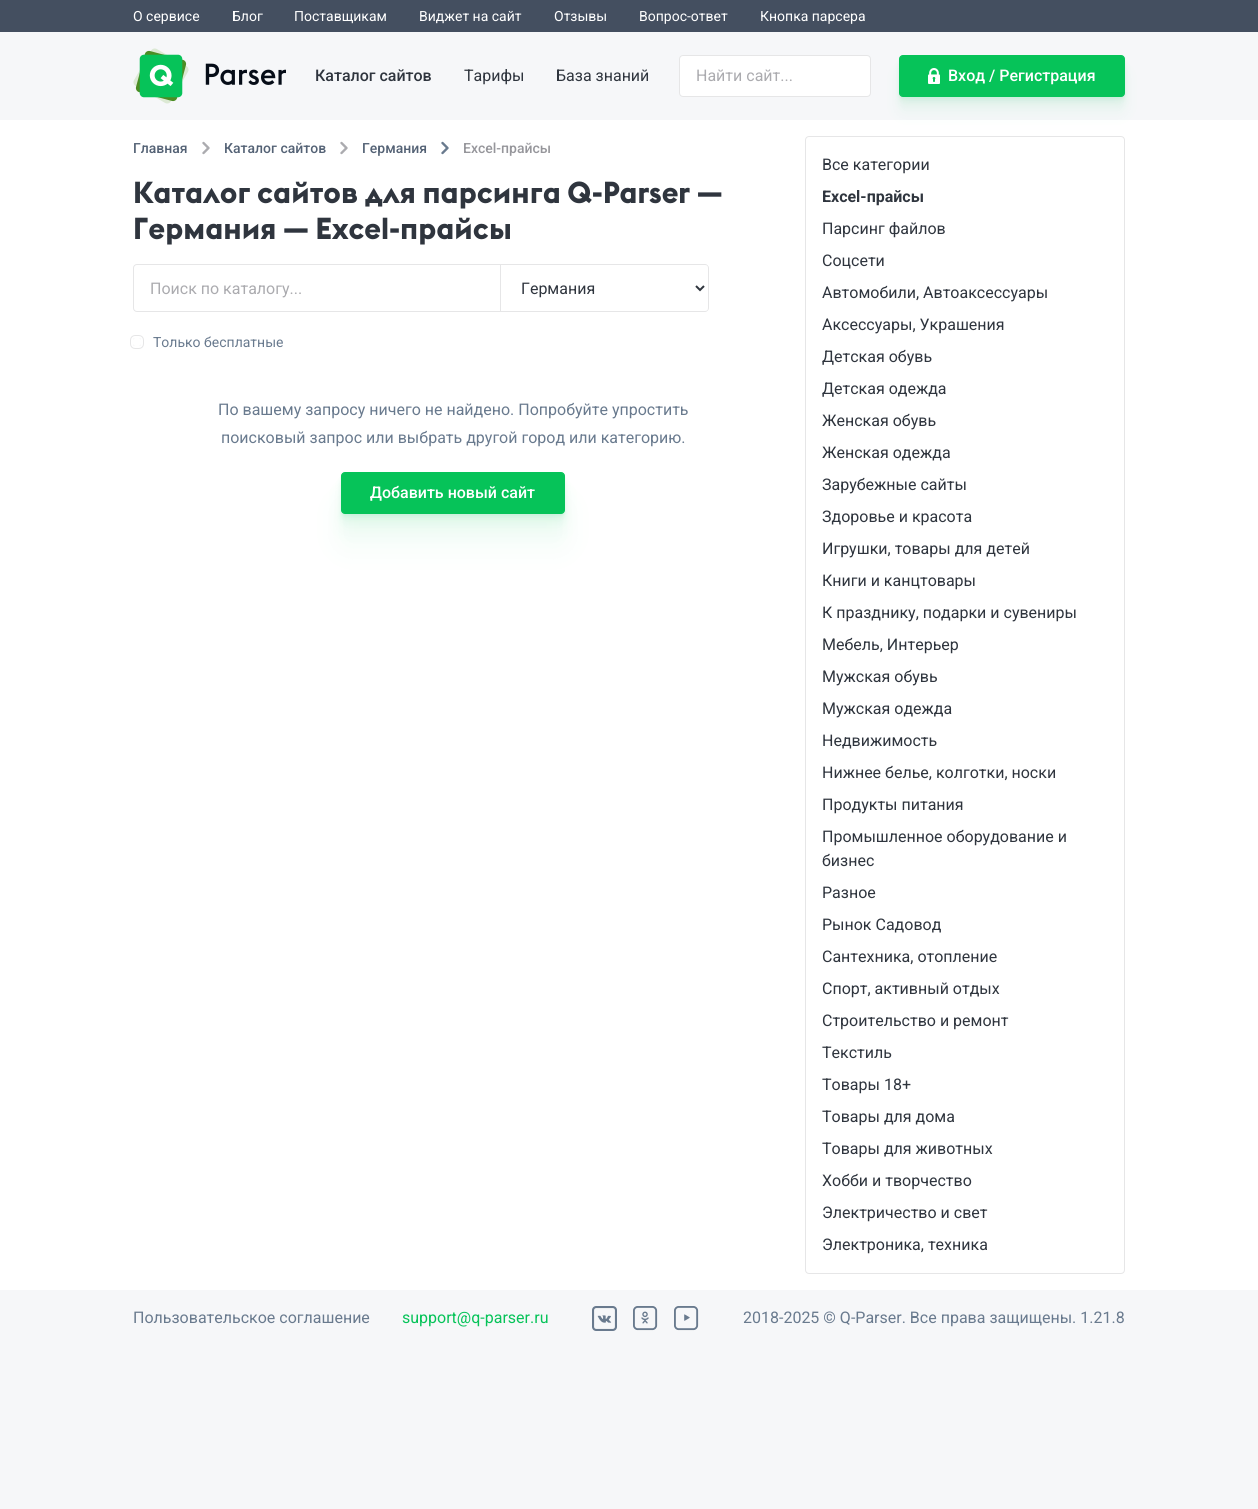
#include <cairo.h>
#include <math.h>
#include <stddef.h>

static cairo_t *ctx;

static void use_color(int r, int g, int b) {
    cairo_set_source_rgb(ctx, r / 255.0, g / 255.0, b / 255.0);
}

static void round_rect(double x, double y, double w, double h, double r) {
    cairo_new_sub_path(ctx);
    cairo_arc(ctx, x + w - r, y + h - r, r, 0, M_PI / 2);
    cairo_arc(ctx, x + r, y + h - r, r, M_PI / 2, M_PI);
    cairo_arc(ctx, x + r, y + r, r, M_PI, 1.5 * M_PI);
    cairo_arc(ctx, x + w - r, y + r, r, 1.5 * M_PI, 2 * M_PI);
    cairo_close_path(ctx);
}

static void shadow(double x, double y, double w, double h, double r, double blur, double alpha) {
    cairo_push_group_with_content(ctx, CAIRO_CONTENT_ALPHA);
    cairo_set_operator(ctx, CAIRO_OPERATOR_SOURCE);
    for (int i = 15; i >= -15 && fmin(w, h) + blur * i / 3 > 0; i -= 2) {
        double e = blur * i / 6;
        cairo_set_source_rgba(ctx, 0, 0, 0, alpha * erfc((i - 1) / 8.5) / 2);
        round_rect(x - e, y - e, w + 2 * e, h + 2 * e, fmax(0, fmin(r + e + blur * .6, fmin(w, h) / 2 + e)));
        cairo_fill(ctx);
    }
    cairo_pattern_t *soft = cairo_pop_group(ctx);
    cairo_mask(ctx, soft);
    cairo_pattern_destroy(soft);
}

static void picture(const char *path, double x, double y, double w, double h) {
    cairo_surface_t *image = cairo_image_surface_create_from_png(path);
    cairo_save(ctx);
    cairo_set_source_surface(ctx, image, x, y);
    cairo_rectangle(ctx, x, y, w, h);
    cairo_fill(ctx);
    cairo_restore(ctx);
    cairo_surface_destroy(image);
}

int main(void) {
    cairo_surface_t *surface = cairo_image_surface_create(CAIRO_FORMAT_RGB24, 1258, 1509);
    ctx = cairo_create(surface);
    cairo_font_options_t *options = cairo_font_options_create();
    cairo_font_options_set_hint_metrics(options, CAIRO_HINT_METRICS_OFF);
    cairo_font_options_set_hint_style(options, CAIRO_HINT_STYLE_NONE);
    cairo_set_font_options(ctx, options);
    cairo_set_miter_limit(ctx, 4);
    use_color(246, 247, 249);
    cairo_paint(ctx);
    use_color(68, 79, 96);
    cairo_rectangle(ctx, 0, 0, 1258, 32);
    cairo_fill(ctx);
    cairo_select_font_face(ctx, "Roboto", CAIRO_FONT_SLANT_NORMAL, CAIRO_FONT_WEIGHT_NORMAL);
    cairo_set_font_size(ctx, 14);
    use_color(255, 255, 255);
    cairo_move_to(ctx, 133, 21);
    cairo_show_text(ctx, "О сервисе");
    cairo_move_to(ctx, 232, 21);
    cairo_show_text(ctx, "Блог");
    cairo_move_to(ctx, 294, 21);
    cairo_show_text(ctx, "Поставщикам");
    cairo_move_to(ctx, 419, 21);
    cairo_show_text(ctx, "Виджет на сайт");
    cairo_move_to(ctx, 554, 21);
    cairo_show_text(ctx, "Отзывы");
    cairo_move_to(ctx, 639, 21);
    cairo_show_text(ctx, "Вопрос-ответ");
    cairo_move_to(ctx, 760, 21);
    cairo_show_text(ctx, "Кнопка парсера");
    picture("img1.png", 133, 48, 153, 56);
    cairo_select_font_face(ctx, "Roboto Medium", CAIRO_FONT_SLANT_NORMAL, CAIRO_FONT_WEIGHT_NORMAL);
    cairo_set_font_size(ctx, 16);
    use_color(47, 53, 62);
    cairo_move_to(ctx, 315, 81);
    cairo_show_text(ctx, "Каталог сайтов");
    cairo_select_font_face(ctx, "Roboto", CAIRO_FONT_SLANT_NORMAL, CAIRO_FONT_WEIGHT_NORMAL);
    cairo_move_to(ctx, 464, 81);
    cairo_show_text(ctx, "Тарифы");
    cairo_move_to(ctx, 556, 81);
    cairo_show_text(ctx, "База знаний");
    use_color(255, 255, 255);
    round_rect(679.5, 55.5, 191, 41, 3.5);
    cairo_fill_preserve(ctx);
    use_color(230, 230, 231);
    cairo_set_line_width(ctx, 1);
    cairo_stroke(ctx);
    use_color(171, 171, 175);
    cairo_move_to(ctx, 696, 81);
    cairo_show_text(ctx, "Найти сайт...");
    use_color(255, 255, 255);
    cairo_rectangle(ctx, 0, 120, 1258, 1170);
    cairo_fill(ctx);
    use_color(6, 195, 89);
    shadow(899, 71, 226, 42, 4, 8, 0.05);
    shadow(899, 63, 226, 42, 4, 4, 0.05);
    shadow(899, 59, 226, 42, 4, 2, 0.05);
    shadow(899, 57, 226, 42, 4, 1, 0.05);
    use_color(6, 195, 89);
    round_rect(899.5, 55.5, 225, 41, 3.5);
    cairo_fill_preserve(ctx);
    cairo_stroke(ctx);
    picture("img2.png", 928, 68, 12, 16);
    cairo_select_font_face(ctx, "Roboto Medium", CAIRO_FONT_SLANT_NORMAL, CAIRO_FONT_WEIGHT_NORMAL);
    use_color(255, 255, 255);
    cairo_move_to(ctx, 948, 81);
    cairo_show_text(ctx, "Вход / Регистрация");
    cairo_set_font_size(ctx, 14);
    use_color(84, 98, 117);
    cairo_move_to(ctx, 133, 153);
    cairo_show_text(ctx, "Главная");
    cairo_new_path(ctx);
    cairo_move_to(ctx, 203.5, 153);
    cairo_line_to(ctx, 208.5, 148);
    cairo_line_to(ctx, 203.5, 143);
    use_color(171, 171, 175);
    cairo_set_line_width(ctx, 2.4);
    cairo_set_line_cap(ctx, CAIRO_LINE_CAP_ROUND);
    cairo_set_line_join(ctx, CAIRO_LINE_JOIN_ROUND);
    cairo_stroke(ctx);
    use_color(84, 98, 117);
    cairo_move_to(ctx, 224, 153);
    cairo_show_text(ctx, "Каталог сайтов");
    cairo_new_path(ctx);
    cairo_move_to(ctx, 341.5, 153);
    cairo_line_to(ctx, 346.5, 148);
    cairo_line_to(ctx, 341.5, 143);
    use_color(171, 171, 175);
    cairo_stroke(ctx);
    use_color(84, 98, 117);
    cairo_move_to(ctx, 362, 153);
    cairo_show_text(ctx, "Германия");
    cairo_new_path(ctx);
    cairo_move_to(ctx, 442.5, 153);
    cairo_line_to(ctx, 447.5, 148);
    cairo_line_to(ctx, 442.5, 143);
    use_color(105, 122, 142);
    cairo_stroke(ctx);
    use_color(150, 150, 155);
    cairo_move_to(ctx, 463, 153);
    cairo_show_text(ctx, "Excel-прайсы");
    cairo_select_font_face(ctx, "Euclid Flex", CAIRO_FONT_SLANT_NORMAL, CAIRO_FONT_WEIGHT_BOLD);
    cairo_set_font_size(ctx, 30);
    use_color(47, 53, 62);
    cairo_move_to(ctx, 133, 203);
    cairo_show_text(ctx, "Каталог сайтов для парсинга Q-Parser —");
    cairo_move_to(ctx, 133, 239);
    cairo_show_text(ctx, "Германия — Excel-прайсы");
    cairo_new_path(ctx);
    cairo_move_to(ctx, 137, 264.5);
    cairo_line_to(ctx, 500.5, 264.5);
    cairo_line_to(ctx, 500.5, 311.5);
    cairo_line_to(ctx, 137, 311.5);
    cairo_curve_to(ctx, 135, 311.5, 133.5, 310, 133.5, 308);
    cairo_line_to(ctx, 133.5, 268);
    cairo_curve_to(ctx, 133.5, 266, 135, 264.5, 137, 264.5);
    cairo_close_path(ctx);
    use_color(230, 230, 231);
    cairo_set_line_width(ctx, 1);
    cairo_set_line_cap(ctx, CAIRO_LINE_CAP_BUTT);
    cairo_set_line_join(ctx, CAIRO_LINE_JOIN_MITER);
    cairo_stroke(ctx);
    cairo_select_font_face(ctx, "Roboto", CAIRO_FONT_SLANT_NORMAL, CAIRO_FONT_WEIGHT_NORMAL);
    cairo_set_font_size(ctx, 16);
    use_color(171, 171, 175);
    cairo_move_to(ctx, 150, 294);
    cairo_show_text(ctx, "Поиск по каталогу...");
    use_color(230, 230, 231);
    cairo_set_fill_rule(ctx, CAIRO_FILL_RULE_EVEN_ODD);
    cairo_new_path(ctx);
    cairo_move_to(ctx, 501, 264);
    cairo_line_to(ctx, 705, 264);
    cairo_curve_to(ctx, 707, 264, 709, 266, 709, 268);
    cairo_line_to(ctx, 709, 308);
    cairo_curve_to(ctx, 709, 310, 707, 312, 705, 312);
    cairo_line_to(ctx, 501, 312);
    cairo_close_path(ctx);
    cairo_move_to(ctx, 501, 265);
    cairo_line_to(ctx, 705, 265);
    cairo_curve_to(ctx, 707, 265, 708, 266, 708, 268);
    cairo_line_to(ctx, 708, 308);
    cairo_curve_to(ctx, 708, 310, 707, 311, 705, 311);
    cairo_line_to(ctx, 501, 311);
    cairo_close_path(ctx);
    cairo_fill(ctx);
    cairo_new_path(ctx);
    cairo_move_to(ctx, 696, 286);
    cairo_line_to(ctx, 700, 290);
    cairo_line_to(ctx, 704, 286);
    use_color(47, 53, 62);
    cairo_set_line_width(ctx, 2);
    cairo_stroke(ctx);
    cairo_move_to(ctx, 521, 294);
    cairo_show_text(ctx, "Германия");
    round_rect(131.5, 336.5, 11, 11, 3.5);
    use_color(230, 230, 231);
    cairo_set_line_width(ctx, 3);
    cairo_stroke(ctx);
    round_rect(132, 337, 10, 10, 3);
    use_color(255, 255, 255);
    cairo_set_line_width(ctx, 2);
    cairo_stroke(ctx);
    cairo_set_font_size(ctx, 14);
    use_color(105, 122, 142);
    cairo_move_to(ctx, 153, 347);
    cairo_show_text(ctx, "Только бесплатные");
    cairo_set_font_size(ctx, 16);
    cairo_move_to(ctx, 218, 415);
    cairo_show_text(ctx, "По вашему запросу ничего не найдено. Попробуйте упростить");
    cairo_move_to(ctx, 221, 443);
    cairo_show_text(ctx, "поисковый запрос или выбрать другой город или категорию.");
    use_color(6, 195, 89);
    shadow(341, 504, 224, 42, 4, 16, 0.05);
    shadow(341, 488, 224, 42, 4, 8, 0.05);
    shadow(341, 480, 224, 42, 4, 4, 0.05);
    shadow(341, 476, 224, 42, 4, 2, 0.05);
    shadow(341, 474, 224, 42, 4, 1, 0.05);
    use_color(6, 195, 89);
    round_rect(341.5, 472.5, 223, 41, 3.5);
    cairo_fill_preserve(ctx);
    cairo_set_line_width(ctx, 1);
    cairo_stroke(ctx);
    cairo_select_font_face(ctx, "Roboto Medium", CAIRO_FONT_SLANT_NORMAL, CAIRO_FONT_WEIGHT_NORMAL);
    use_color(255, 255, 255);
    cairo_move_to(ctx, 370, 498);
    cairo_show_text(ctx, "Добавить новый сайт");
    round_rect(805.5, 136.5, 319, 1137, 3.5);
    use_color(230, 230, 231);
    cairo_stroke(ctx);
    cairo_select_font_face(ctx, "Roboto", CAIRO_FONT_SLANT_NORMAL, CAIRO_FONT_WEIGHT_NORMAL);
    use_color(47, 53, 62);
    cairo_move_to(ctx, 822, 170);
    cairo_show_text(ctx, "Все категории");
    cairo_select_font_face(ctx, "Roboto", CAIRO_FONT_SLANT_NORMAL, CAIRO_FONT_WEIGHT_BOLD);
    cairo_move_to(ctx, 822, 202);
    cairo_show_text(ctx, "Excel-прайсы");
    cairo_select_font_face(ctx, "Roboto", CAIRO_FONT_SLANT_NORMAL, CAIRO_FONT_WEIGHT_NORMAL);
    cairo_move_to(ctx, 822, 234);
    cairo_show_text(ctx, "Парсинг файлов");
    cairo_move_to(ctx, 822, 266);
    cairo_show_text(ctx, "Соцсети");
    cairo_move_to(ctx, 822, 298);
    cairo_show_text(ctx, "Автомобили, Автоаксессуары");
    cairo_move_to(ctx, 822, 330);
    cairo_show_text(ctx, "Аксессуары, Украшения");
    cairo_move_to(ctx, 822, 362);
    cairo_show_text(ctx, "Детская обувь");
    cairo_move_to(ctx, 822, 394);
    cairo_show_text(ctx, "Детская одежда");
    cairo_move_to(ctx, 822, 426);
    cairo_show_text(ctx, "Женская обувь");
    cairo_move_to(ctx, 822, 458);
    cairo_show_text(ctx, "Женская одежда");
    cairo_move_to(ctx, 822, 490);
    cairo_show_text(ctx, "Зарубежные сайты");
    cairo_move_to(ctx, 822, 522);
    cairo_show_text(ctx, "Здоровье и красота");
    cairo_move_to(ctx, 822, 554);
    cairo_show_text(ctx, "Игрушки, товары для детей");
    cairo_move_to(ctx, 822, 586);
    cairo_show_text(ctx, "Книги и канцтовары");
    cairo_move_to(ctx, 822, 618);
    cairo_show_text(ctx, "К празднику, подарки и сувениры");
    cairo_move_to(ctx, 822, 650);
    cairo_show_text(ctx, "Мебель, Интерьер");
    cairo_move_to(ctx, 822, 682);
    cairo_show_text(ctx, "Мужская обувь");
    cairo_move_to(ctx, 822, 714);
    cairo_show_text(ctx, "Мужская одежда");
    cairo_move_to(ctx, 822, 746);
    cairo_show_text(ctx, "Недвижимость");
    cairo_move_to(ctx, 822, 778);
    cairo_show_text(ctx, "Нижнее белье, колготки, носки");
    cairo_move_to(ctx, 822, 810);
    cairo_show_text(ctx, "Продукты питания");
    cairo_move_to(ctx, 822, 842);
    cairo_show_text(ctx, "Промышленное оборудование и");
    cairo_move_to(ctx, 822, 866);
    cairo_show_text(ctx, "бизнес");
    cairo_move_to(ctx, 822, 898);
    cairo_show_text(ctx, "Разное");
    cairo_move_to(ctx, 822, 930);
    cairo_show_text(ctx, "Рынок Садовод");
    cairo_move_to(ctx, 822, 962);
    cairo_show_text(ctx, "Сантехника, отопление");
    cairo_move_to(ctx, 822, 994);
    cairo_show_text(ctx, "Спорт, активный отдых");
    cairo_move_to(ctx, 822, 1026);
    cairo_show_text(ctx, "Строительство и ремонт");
    cairo_move_to(ctx, 822, 1058);
    cairo_show_text(ctx, "Текстиль");
    cairo_move_to(ctx, 822, 1090);
    cairo_show_text(ctx, "Товары 18+");
    cairo_move_to(ctx, 822, 1122);
    cairo_show_text(ctx, "Товары для дома");
    cairo_move_to(ctx, 822, 1154);
    cairo_show_text(ctx, "Товары для животных");
    cairo_move_to(ctx, 822, 1186);
    cairo_show_text(ctx, "Хобби и творчество");
    cairo_move_to(ctx, 822, 1218);
    cairo_show_text(ctx, "Электричество и свет");
    cairo_move_to(ctx, 822, 1250);
    cairo_show_text(ctx, "Электроника, техника");
    use_color(105, 122, 142);
    cairo_move_to(ctx, 133, 1323);
    cairo_show_text(ctx, "Пользовательское соглашение");
    use_color(6, 195, 89);
    cairo_move_to(ctx, 402, 1323);
    cairo_show_text(ctx, "support@q-parser.ru");
    picture("img3.png", 592, 1306, 25, 25);
    picture("img4.png", 633, 1306, 25, 25);
    picture("img5.png", 674, 1306, 25, 25);
    use_color(105, 122, 142);
    cairo_move_to(ctx, 743, 1323);
    cairo_show_text(ctx, "2018-2025 © Q-Parser. Все права защищены. 1.21.8");
    cairo_surface_write_to_png(surface, "result.png");
    cairo_font_options_destroy(options);
    cairo_destroy(ctx);
    cairo_surface_destroy(surface);
    return 0;
}
